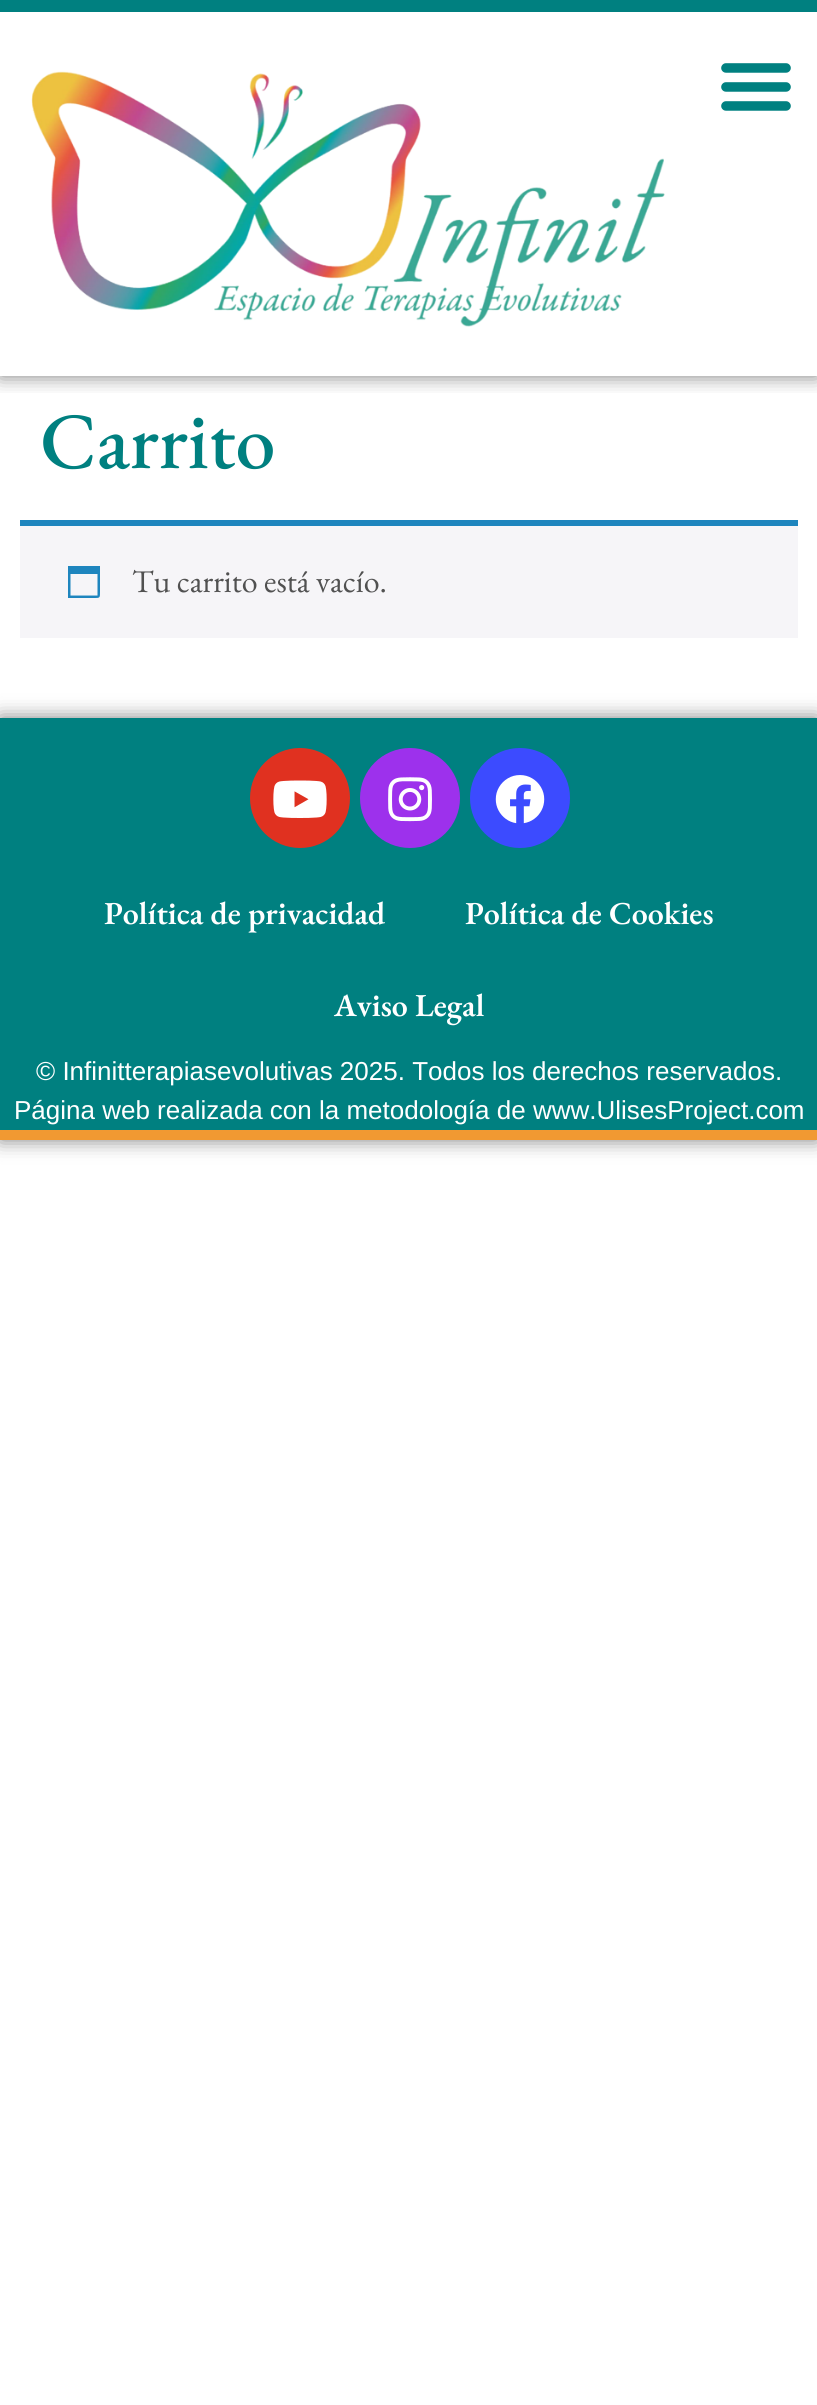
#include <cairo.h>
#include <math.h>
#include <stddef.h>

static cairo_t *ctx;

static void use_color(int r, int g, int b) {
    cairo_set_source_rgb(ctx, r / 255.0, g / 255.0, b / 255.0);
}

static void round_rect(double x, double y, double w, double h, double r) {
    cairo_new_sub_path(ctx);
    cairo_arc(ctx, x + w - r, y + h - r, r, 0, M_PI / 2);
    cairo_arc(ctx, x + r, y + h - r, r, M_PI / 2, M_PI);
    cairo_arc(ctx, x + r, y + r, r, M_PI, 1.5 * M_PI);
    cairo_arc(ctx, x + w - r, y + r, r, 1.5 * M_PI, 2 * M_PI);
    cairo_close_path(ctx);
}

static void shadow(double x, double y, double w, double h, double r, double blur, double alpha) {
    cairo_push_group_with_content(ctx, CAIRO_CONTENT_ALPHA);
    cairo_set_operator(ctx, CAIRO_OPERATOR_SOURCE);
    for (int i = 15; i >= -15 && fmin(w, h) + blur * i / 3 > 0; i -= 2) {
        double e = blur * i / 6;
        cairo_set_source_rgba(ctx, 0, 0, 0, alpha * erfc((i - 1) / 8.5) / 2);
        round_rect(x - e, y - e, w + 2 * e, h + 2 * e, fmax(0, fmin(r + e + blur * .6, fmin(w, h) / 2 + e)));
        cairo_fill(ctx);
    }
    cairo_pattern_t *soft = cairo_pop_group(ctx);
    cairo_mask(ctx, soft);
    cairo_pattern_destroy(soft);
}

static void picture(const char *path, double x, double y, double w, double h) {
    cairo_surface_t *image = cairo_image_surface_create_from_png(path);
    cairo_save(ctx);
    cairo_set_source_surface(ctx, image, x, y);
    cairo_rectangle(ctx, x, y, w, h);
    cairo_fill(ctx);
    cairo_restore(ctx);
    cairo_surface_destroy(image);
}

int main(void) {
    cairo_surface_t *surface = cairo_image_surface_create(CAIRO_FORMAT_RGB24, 817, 2405);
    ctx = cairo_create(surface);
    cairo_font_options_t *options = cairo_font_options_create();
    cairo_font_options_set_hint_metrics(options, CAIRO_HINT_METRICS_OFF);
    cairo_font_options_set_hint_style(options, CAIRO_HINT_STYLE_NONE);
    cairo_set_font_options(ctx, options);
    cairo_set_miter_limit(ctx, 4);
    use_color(255, 255, 255);
    cairo_paint(ctx);
    cairo_save(ctx);
    cairo_rectangle(ctx, 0, 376, 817, 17);
    cairo_clip(ctx);
    use_color(0, 0, 0);
    shadow(0, 0, 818, 376, 0, 10, 0.5);
    cairo_restore(ctx);
    use_color(0, 128, 128);
    cairo_rectangle(ctx, 0, 0, 817, 12);
    cairo_fill(ctx);
    picture("img1.png", 31, 71, 634, 256);
    picture("img2.png", 721, 63, 70, 48);
    cairo_select_font_face(ctx, "EB Garamond Medium", CAIRO_FONT_SLANT_NORMAL, CAIRO_FONT_WEIGHT_NORMAL);
    cairo_set_font_size(ctx, 80);
    cairo_move_to(ctx, 40, 468);
    cairo_show_text(ctx, "Carrito");
    use_color(246, 245, 248);
    cairo_rectangle(ctx, 20, 526, 778, 112);
    cairo_fill(ctx);
    use_color(30, 133, 190);
    cairo_rectangle(ctx, 20, 520, 778, 6);
    cairo_fill(ctx);
    cairo_new_path(ctx);
    cairo_move_to(ctx, 97.5, 574);
    cairo_line_to(ctx, 70.5, 574);
    cairo_line_to(ctx, 70.5, 595.5);
    cairo_line_to(ctx, 97.5, 595.5);
    cairo_close_path(ctx);
    cairo_move_to(ctx, 100, 566);
    cairo_line_to(ctx, 100, 590.5);
    cairo_curve_to(ctx, 100, 598.5, 100.5, 598, 92.5, 598);
    cairo_line_to(ctx, 68, 598);
    cairo_line_to(ctx, 68, 566);
    cairo_close_path(ctx);
    cairo_fill(ctx);
    cairo_select_font_face(ctx, "EB Garamond", CAIRO_FONT_SLANT_NORMAL, CAIRO_FONT_WEIGHT_NORMAL);
    cairo_set_font_size(ctx, 32);
    use_color(81, 81, 81);
    cairo_move_to(ctx, 132, 592);
    cairo_show_text(ctx, "Tu carrito está vacío.");
    use_color(0, 0, 0);
    shadow(0, 718, 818, 422, 0, 10, 0.5);
    use_color(0, 128, 128);
    cairo_rectangle(ctx, 0, 718, 817, 412);
    cairo_fill(ctx);
    use_color(241, 153, 50);
    cairo_rectangle(ctx, 0, 1130, 817, 10);
    cairo_fill(ctx);
    use_color(224, 49, 32);
    cairo_arc(ctx, 300, 798, 50, 0, 2 * M_PI);
    cairo_fill(ctx);
    picture("img3.png", 273, 780, 54, 38);
    use_color(157, 49, 236);
    cairo_arc(ctx, 410, 798, 50, 0, 2 * M_PI);
    cairo_fill(ctx);
    picture("img4.png", 388, 777, 44, 45);
    use_color(60, 75, 255);
    cairo_arc(ctx, 520, 798, 50, 0, 2 * M_PI);
    cairo_fill(ctx);
    picture("img5.png", 495, 775, 50, 49);
    cairo_select_font_face(ctx, "EB Garamond SemiBold", CAIRO_FONT_SLANT_NORMAL, CAIRO_FONT_WEIGHT_NORMAL);
    use_color(255, 255, 255);
    cairo_move_to(ctx, 104, 924);
    cairo_show_text(ctx, "Política de privacidad");
    cairo_move_to(ctx, 465, 924);
    cairo_show_text(ctx, "Política de Cookies");
    cairo_move_to(ctx, 334, 1016);
    cairo_show_text(ctx, "Aviso Legal");
    cairo_select_font_face(ctx, "Liberation Sans", CAIRO_FONT_SLANT_NORMAL, CAIRO_FONT_WEIGHT_NORMAL);
    cairo_set_font_size(ctx, 26);
    cairo_move_to(ctx, 36, 1080);
    cairo_show_text(ctx, "© Infinitterapiasevolutivas 2025. Todos los derechos reservados.");
    cairo_move_to(ctx, 14, 1119);
    cairo_show_text(ctx, "Página web realizada con la metodología de www.UlisesProject.com");
    cairo_surface_write_to_png(surface, "result.png");
    cairo_font_options_destroy(options);
    cairo_destroy(ctx);
    cairo_surface_destroy(surface);
    return 0;
}
